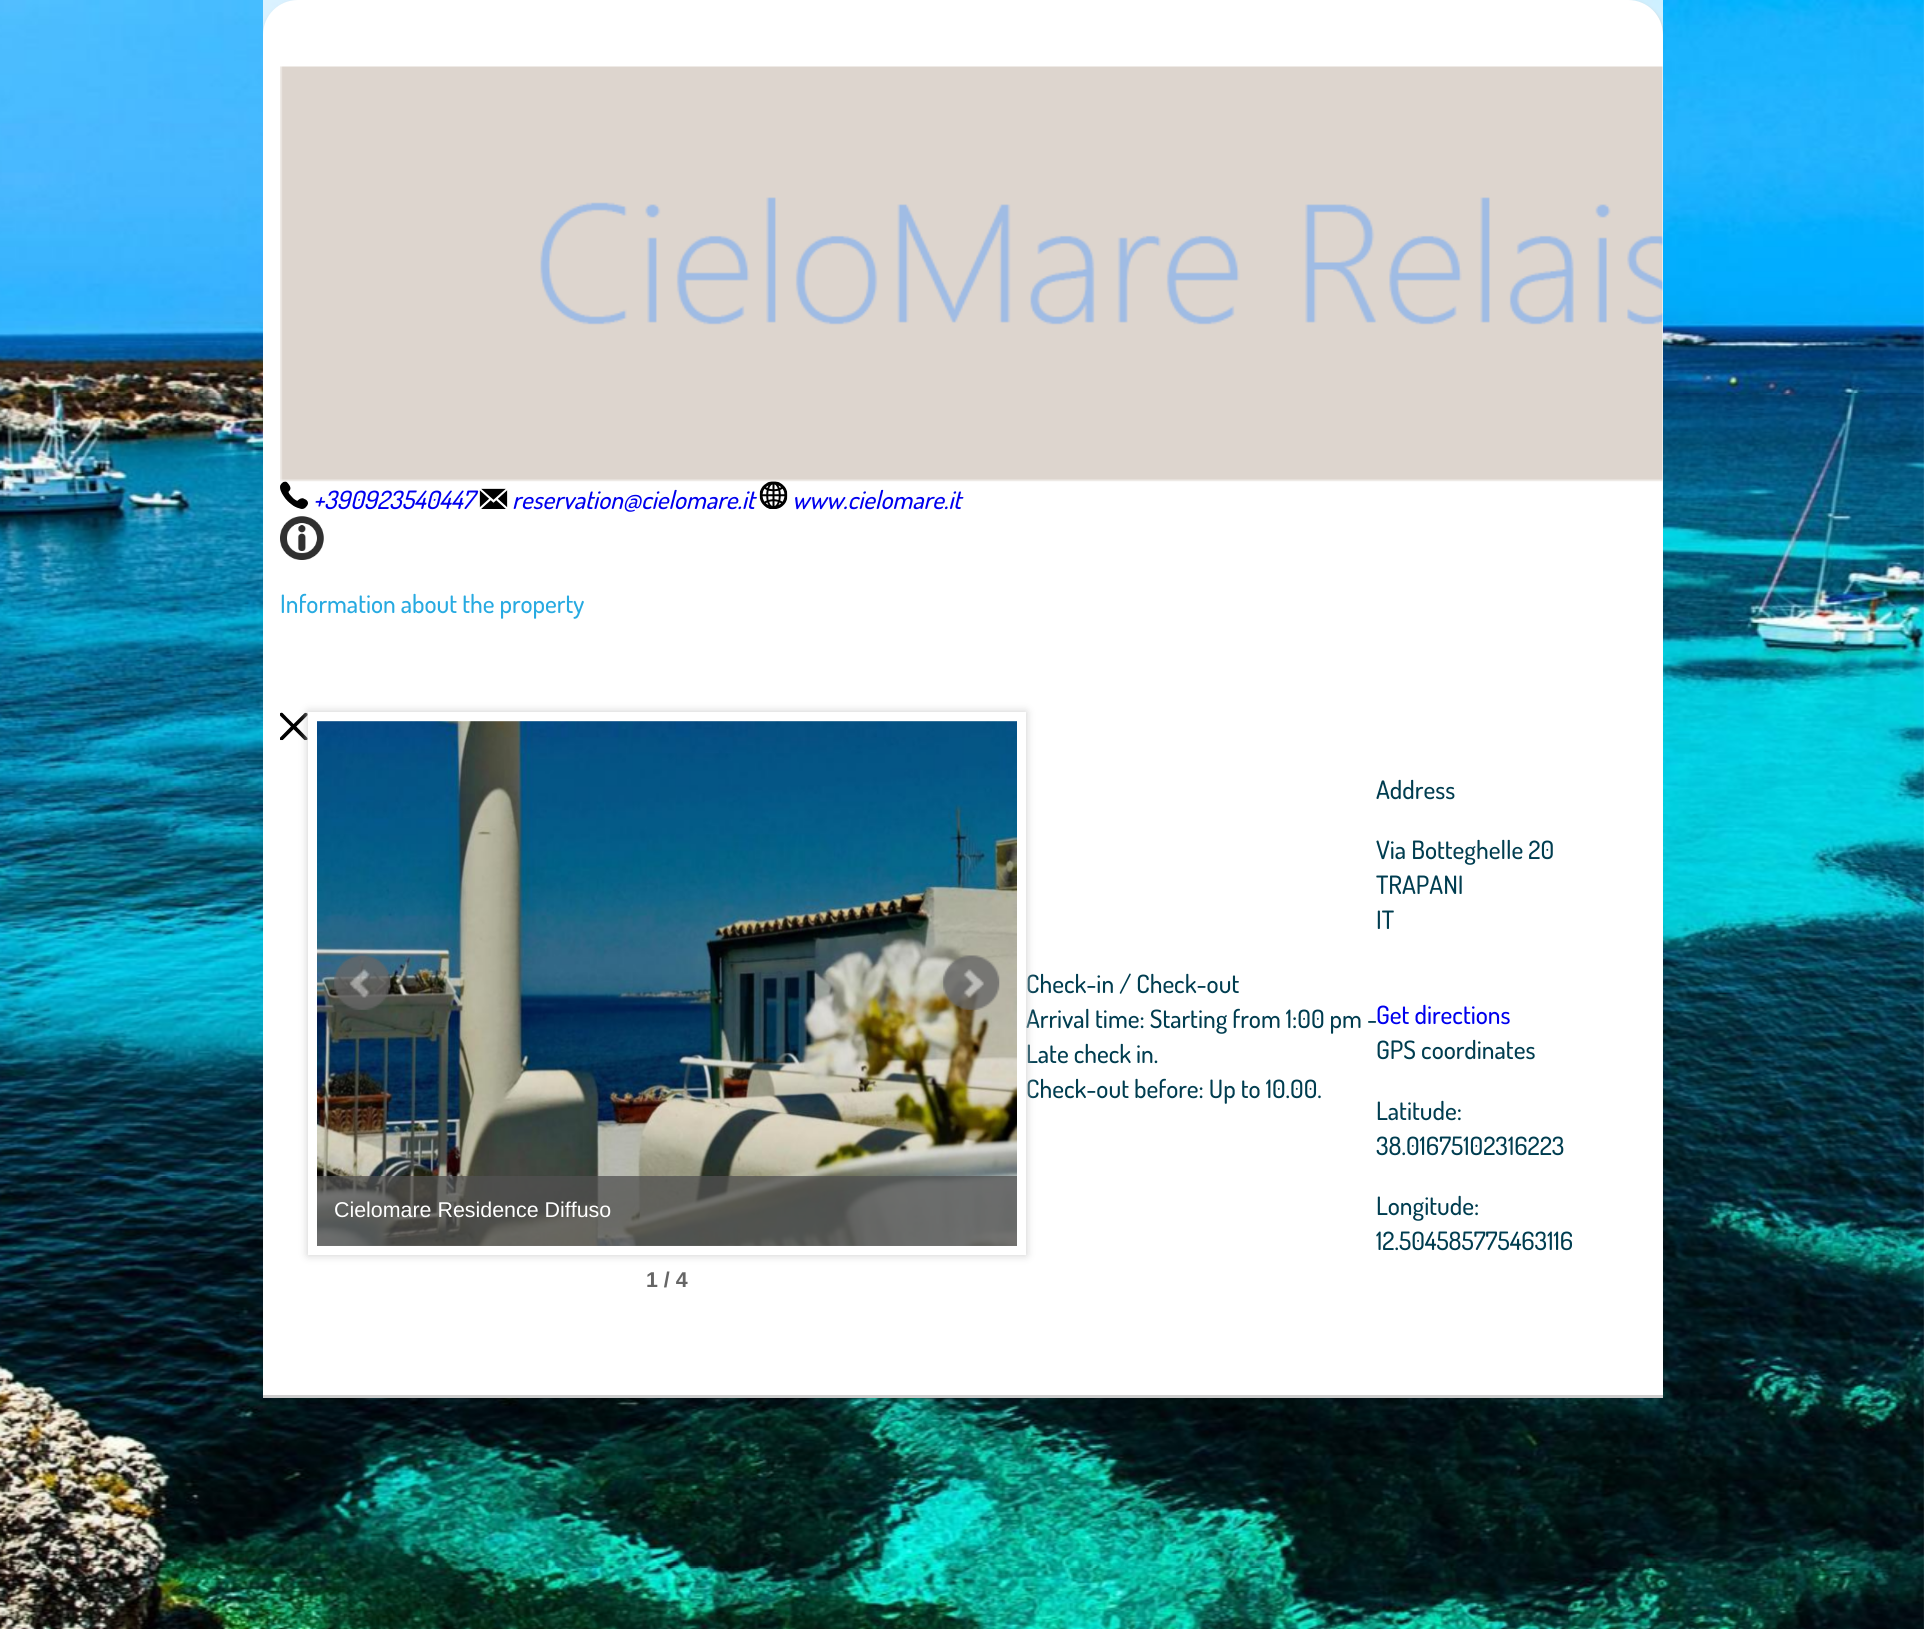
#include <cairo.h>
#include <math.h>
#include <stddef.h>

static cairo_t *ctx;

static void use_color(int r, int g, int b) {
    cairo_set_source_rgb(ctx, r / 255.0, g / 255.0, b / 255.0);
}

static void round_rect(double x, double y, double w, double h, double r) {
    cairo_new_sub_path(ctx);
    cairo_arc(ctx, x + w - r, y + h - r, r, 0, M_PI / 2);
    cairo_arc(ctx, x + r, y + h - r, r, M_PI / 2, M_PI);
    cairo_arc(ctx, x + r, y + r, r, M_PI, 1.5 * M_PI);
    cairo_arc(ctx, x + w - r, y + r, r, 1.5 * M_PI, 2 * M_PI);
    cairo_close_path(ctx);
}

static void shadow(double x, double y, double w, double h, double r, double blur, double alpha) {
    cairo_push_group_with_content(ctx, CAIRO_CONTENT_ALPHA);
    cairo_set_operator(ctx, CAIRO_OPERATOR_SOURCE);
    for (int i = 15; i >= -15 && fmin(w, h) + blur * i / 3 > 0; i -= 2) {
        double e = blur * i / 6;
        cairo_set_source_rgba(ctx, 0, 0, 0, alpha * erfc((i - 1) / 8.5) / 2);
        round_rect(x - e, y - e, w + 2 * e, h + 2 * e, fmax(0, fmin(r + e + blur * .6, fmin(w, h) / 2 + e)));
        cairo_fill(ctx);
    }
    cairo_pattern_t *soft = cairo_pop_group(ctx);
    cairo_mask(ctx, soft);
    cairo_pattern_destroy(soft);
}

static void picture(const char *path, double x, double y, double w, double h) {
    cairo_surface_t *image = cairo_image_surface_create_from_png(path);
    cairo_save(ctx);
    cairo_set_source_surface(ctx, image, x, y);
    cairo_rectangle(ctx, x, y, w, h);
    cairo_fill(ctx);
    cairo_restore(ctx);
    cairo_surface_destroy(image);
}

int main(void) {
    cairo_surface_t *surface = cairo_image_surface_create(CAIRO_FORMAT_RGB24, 1924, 1629);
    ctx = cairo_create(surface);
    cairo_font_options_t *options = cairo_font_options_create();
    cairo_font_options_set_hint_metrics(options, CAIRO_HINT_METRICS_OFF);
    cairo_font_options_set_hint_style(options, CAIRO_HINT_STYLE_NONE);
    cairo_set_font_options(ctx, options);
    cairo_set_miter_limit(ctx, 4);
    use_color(255, 255, 255);
    cairo_paint(ctx);
    picture("img1.png", 0, 0, 1924, 1629);
    cairo_set_source_rgba(ctx, 1, 1, 1, 0.8);
    cairo_rectangle(ctx, 263, 0, 1400, 35);
    cairo_fill(ctx);
    cairo_save(ctx);
    cairo_rectangle(ctx, 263, 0, 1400, 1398);
    cairo_clip(ctx);
    use_color(204, 204, 204);
    shadow(264, 2, 1400, 1398, 35, 2, 1);
    cairo_restore(ctx);
    use_color(255, 255, 255);
    cairo_new_path(ctx);
    cairo_move_to(ctx, 298, 0);
    cairo_line_to(ctx, 1628, 0);
    cairo_curve_to(ctx, 1647.5, 0, 1663, 15.5, 1663, 35);
    cairo_line_to(ctx, 1663, 1398);
    cairo_line_to(ctx, 263, 1398);
    cairo_line_to(ctx, 263, 35);
    cairo_curve_to(ctx, 263, 15.5, 278.5, 0, 298, 0);
    cairo_close_path(ctx);
    cairo_fill(ctx);
    use_color(204, 204, 204);
    cairo_rectangle(ctx, 263, 1395, 1400, 3);
    cairo_fill(ctx);
    picture("img2.png", 280, 66, 1383, 416);
    picture("img3.png", 280, 481, 28, 28);
    cairo_select_font_face(ctx, "Dosis Medium", CAIRO_FONT_SLANT_ITALIC, CAIRO_FONT_WEIGHT_NORMAL);
    cairo_set_font_size(ctx, 25.25);
    use_color(0, 0, 238);
    cairo_move_to(ctx, 313, 509);
    cairo_show_text(ctx, "+390923540447");
    picture("img4.png", 479, 488, 29, 21);
    cairo_move_to(ctx, 512, 509);
    cairo_show_text(ctx, "reservation@cielomare.it");
    picture("img5.png", 759, 481, 29, 28);
    cairo_move_to(ctx, 792, 509);
    cairo_show_text(ctx, "www.cielomare.it");
    picture("img6.png", 280, 516, 44, 44);
    cairo_select_font_face(ctx, "Dosis Medium", CAIRO_FONT_SLANT_NORMAL, CAIRO_FONT_WEIGHT_NORMAL);
    use_color(39, 170, 225);
    cairo_move_to(ctx, 280, 613);
    cairo_show_text(ctx, "Information about the property");
    picture("img7.png", 280, 712, 28, 29);
    use_color(0, 61, 80);
    cairo_move_to(ctx, 1026, 993);
    cairo_show_text(ctx, "Check-in / Check-out");
    cairo_move_to(ctx, 1026, 1028);
    cairo_show_text(ctx, "Arrival time: Starting from 1:00 pm -");
    cairo_move_to(ctx, 1026, 1063);
    cairo_show_text(ctx, "Late check in.");
    cairo_move_to(ctx, 1026, 1098);
    cairo_show_text(ctx, "Check-out before: Up to 10.00.");
    cairo_move_to(ctx, 1376, 799);
    cairo_show_text(ctx, "Address");
    cairo_move_to(ctx, 1376, 859);
    cairo_show_text(ctx, "Via Botteghelle 20");
    cairo_move_to(ctx, 1376, 894);
    cairo_show_text(ctx, "TRAPANI");
    cairo_move_to(ctx, 1376, 929);
    cairo_show_text(ctx, "IT");
    use_color(0, 0, 238);
    cairo_move_to(ctx, 1376, 1024);
    cairo_show_text(ctx, "Get directions");
    use_color(0, 61, 80);
    cairo_move_to(ctx, 1376, 1059);
    cairo_show_text(ctx, "GPS coordinates");
    cairo_move_to(ctx, 1376, 1120);
    cairo_show_text(ctx, "Latitude:");
    cairo_move_to(ctx, 1376, 1155);
    cairo_show_text(ctx, "38.01675102316223");
    cairo_move_to(ctx, 1376, 1215);
    cairo_show_text(ctx, "Longitude:");
    cairo_move_to(ctx, 1376, 1250);
    cairo_show_text(ctx, "12.504585775463116");
    use_color(204, 204, 204);
    shadow(308, 712, 718, 543, 0, 4.5, 1);
    use_color(255, 255, 255);
    cairo_rectangle(ctx, 308, 712, 718, 543);
    cairo_fill(ctx);
    picture("img8.png", 317, 721, 700, 525);
    cairo_set_source_rgba(ctx, 0.314, 0.314, 0.314, 0.75);
    cairo_rectangle(ctx, 317, 1176, 700, 70);
    cairo_fill(ctx);
    cairo_select_font_face(ctx, "Liberation Sans", CAIRO_FONT_SLANT_NORMAL, CAIRO_FONT_WEIGHT_NORMAL);
    cairo_set_font_size(ctx, 21.4);
    use_color(255, 255, 255);
    cairo_move_to(ctx, 334, 1217);
    cairo_show_text(ctx, "Cielomare Residence Diffuso");
    picture("img9.png", 334, 955, 57, 55);
    picture("img10.png", 943, 955, 57, 55);
    cairo_select_font_face(ctx, "Liberation Sans", CAIRO_FONT_SLANT_NORMAL, CAIRO_FONT_WEIGHT_BOLD);
    use_color(102, 102, 102);
    cairo_move_to(ctx, 646, 1287);
    cairo_show_text(ctx, "1 / 4");
    cairo_surface_write_to_png(surface, "result.png");
    cairo_font_options_destroy(options);
    cairo_destroy(ctx);
    cairo_surface_destroy(surface);
    return 0;
}
